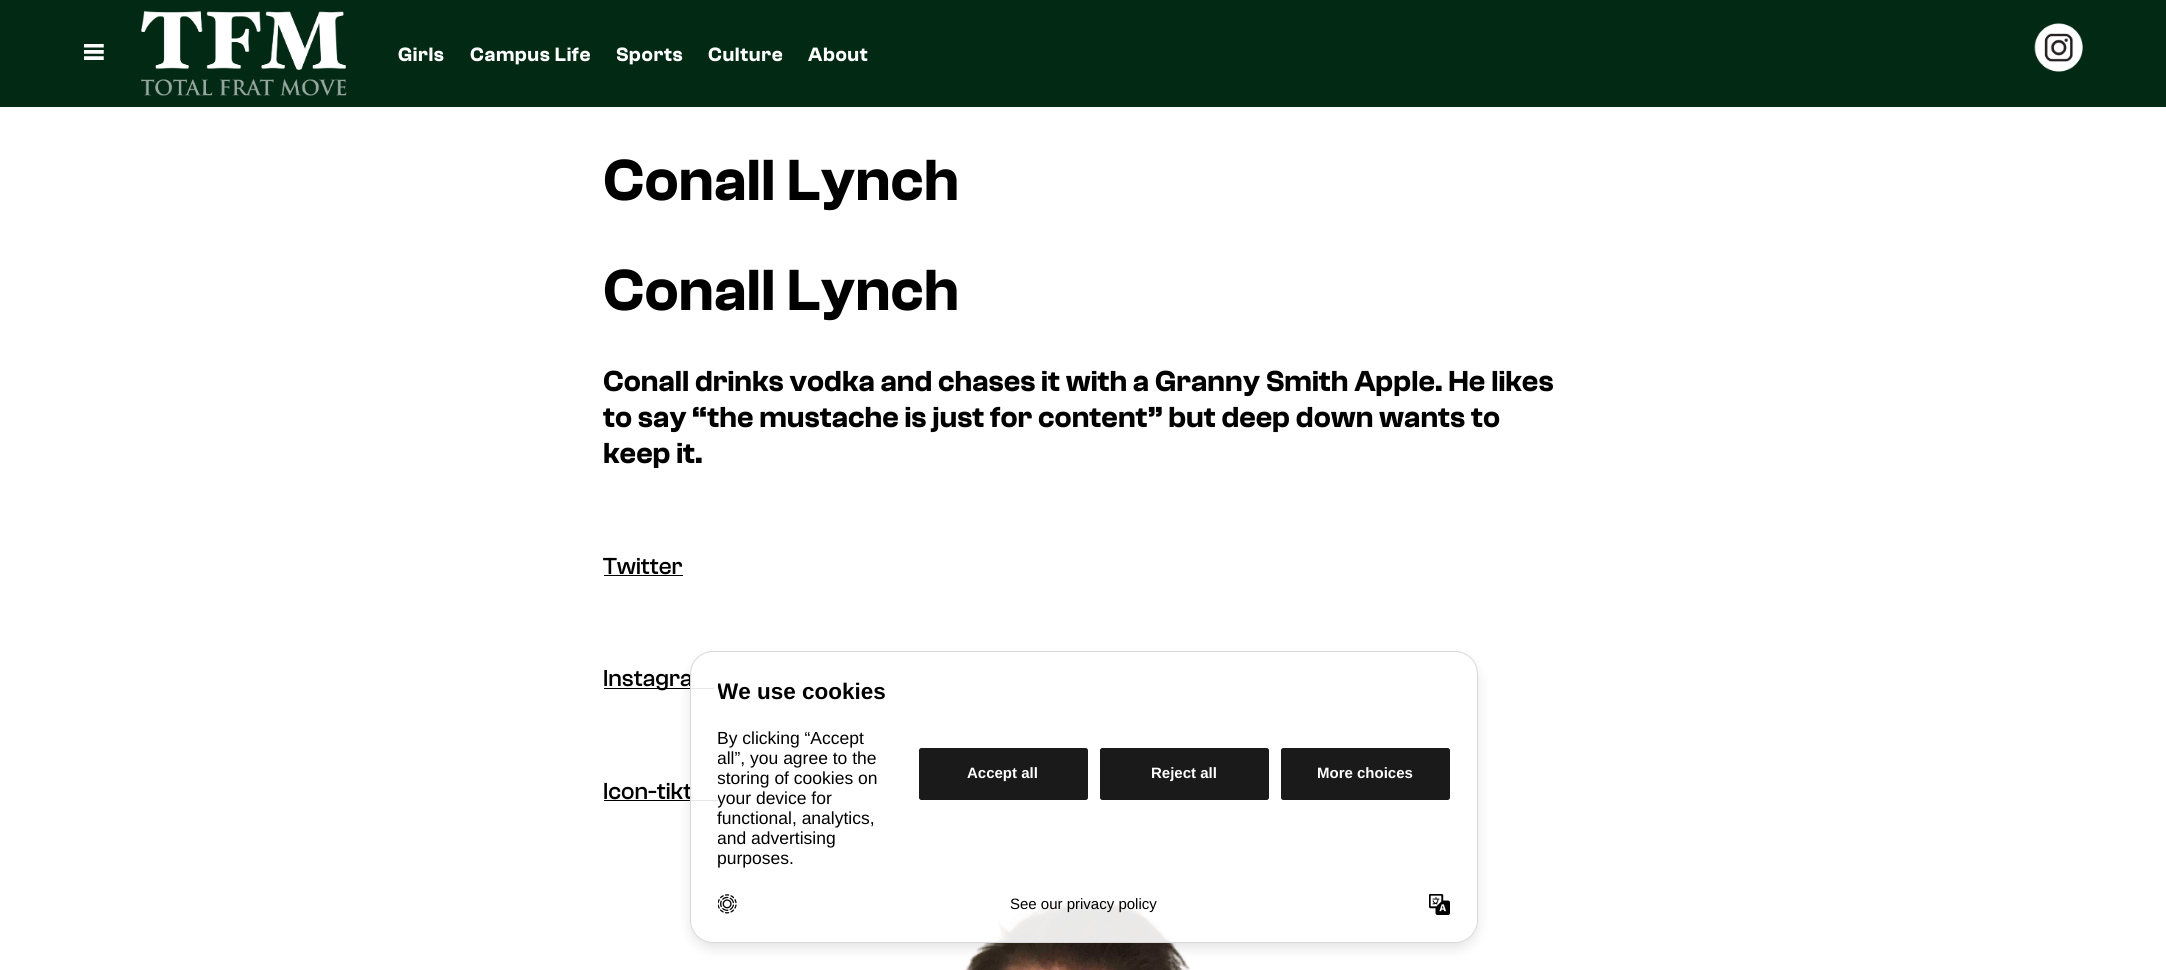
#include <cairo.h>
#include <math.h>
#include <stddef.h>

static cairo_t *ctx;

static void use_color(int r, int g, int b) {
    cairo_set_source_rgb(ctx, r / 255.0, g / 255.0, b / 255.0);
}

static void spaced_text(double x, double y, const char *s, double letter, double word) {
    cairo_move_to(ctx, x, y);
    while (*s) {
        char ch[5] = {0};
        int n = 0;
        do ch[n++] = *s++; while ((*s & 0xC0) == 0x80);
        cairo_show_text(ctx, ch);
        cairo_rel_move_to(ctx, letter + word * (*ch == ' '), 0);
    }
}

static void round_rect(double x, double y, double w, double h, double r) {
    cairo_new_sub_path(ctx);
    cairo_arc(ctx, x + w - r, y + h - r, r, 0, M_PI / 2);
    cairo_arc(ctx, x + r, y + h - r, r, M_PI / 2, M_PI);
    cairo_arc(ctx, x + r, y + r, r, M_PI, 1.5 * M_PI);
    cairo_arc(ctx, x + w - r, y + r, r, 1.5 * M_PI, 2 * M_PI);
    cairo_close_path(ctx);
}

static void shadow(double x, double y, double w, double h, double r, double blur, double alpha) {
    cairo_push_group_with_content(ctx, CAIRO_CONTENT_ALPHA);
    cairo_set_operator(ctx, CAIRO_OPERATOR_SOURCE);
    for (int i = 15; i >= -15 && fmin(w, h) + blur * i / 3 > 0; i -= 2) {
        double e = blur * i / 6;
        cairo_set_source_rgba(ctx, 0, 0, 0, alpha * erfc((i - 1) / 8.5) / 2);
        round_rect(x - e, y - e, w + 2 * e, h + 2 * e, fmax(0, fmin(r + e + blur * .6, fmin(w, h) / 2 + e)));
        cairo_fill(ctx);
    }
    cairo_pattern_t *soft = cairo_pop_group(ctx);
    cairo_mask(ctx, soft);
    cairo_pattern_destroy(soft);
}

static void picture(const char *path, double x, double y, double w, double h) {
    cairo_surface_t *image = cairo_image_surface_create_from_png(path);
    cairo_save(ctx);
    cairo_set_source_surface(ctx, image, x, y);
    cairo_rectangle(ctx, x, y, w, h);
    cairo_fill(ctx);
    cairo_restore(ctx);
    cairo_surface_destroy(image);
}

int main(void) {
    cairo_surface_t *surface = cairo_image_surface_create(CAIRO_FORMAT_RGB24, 2166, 970);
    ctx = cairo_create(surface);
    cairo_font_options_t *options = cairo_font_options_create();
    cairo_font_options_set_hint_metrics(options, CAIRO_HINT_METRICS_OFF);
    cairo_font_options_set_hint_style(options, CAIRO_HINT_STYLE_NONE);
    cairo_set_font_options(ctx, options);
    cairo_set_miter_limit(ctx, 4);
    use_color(255, 255, 255);
    cairo_paint(ctx);
    use_color(2, 41, 20);
    cairo_rectangle(ctx, 0, 0, 2166, 107);
    cairo_fill(ctx);
    picture("img1.png", 84, 44, 20, 16);
    picture("img2.png", 141, 10, 206, 86);
    cairo_select_font_face(ctx, "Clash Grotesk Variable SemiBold", CAIRO_FONT_SLANT_ITALIC, CAIRO_FONT_WEIGHT_NORMAL);
    cairo_set_font_size(ctx, 20);
    use_color(255, 255, 255);
    spaced_text(398, 61, "Girls", 0.6, 0);
    spaced_text(470, 61, "Campus Life", 0.6, 0);
    spaced_text(616, 61, "Sports", 0.6, 0);
    spaced_text(708, 61, "Culture", 0.6, 0);
    spaced_text(808, 61, "About", 0.6, 0);
    picture("img3.png", 2034, 23, 49, 49);
    cairo_set_font_size(ctx, 60);
    use_color(0, 0, 0);
    cairo_move_to(ctx, 603, 200);
    cairo_show_text(ctx, "Conall Lynch");
    cairo_move_to(ctx, 603, 310);
    cairo_show_text(ctx, "Conall Lynch");
    cairo_set_font_size(ctx, 30);
    cairo_move_to(ctx, 603, 391);
    cairo_show_text(ctx, "Conall drinks vodka and chases it with a Granny Smith Apple. He likes");
    cairo_move_to(ctx, 603, 427);
    cairo_show_text(ctx, "to say “the mustache is just for content” but deep down wants to");
    cairo_move_to(ctx, 603, 463);
    cairo_show_text(ctx, "keep it.");
    cairo_select_font_face(ctx, "Clash Grotesk Variable Medium", CAIRO_FONT_SLANT_ITALIC, CAIRO_FONT_WEIGHT_NORMAL);
    cairo_set_font_size(ctx, 24);
    cairo_move_to(ctx, 603, 574);
    cairo_show_text(ctx, "Twitter");
    cairo_rectangle(ctx, 604, 575, 79, 1);
    cairo_fill(ctx);
    cairo_rectangle(ctx, 604, 688, 110, 1);
    cairo_fill(ctx);
    cairo_move_to(ctx, 603, 686);
    cairo_show_text(ctx, "Instagra");
    cairo_move_to(ctx, 603, 799);
    cairo_show_text(ctx, "Icon-tikt");
    cairo_rectangle(ctx, 604, 800, 114, 1);
    cairo_fill(ctx);
    picture("img4.png", 965, 895, 226, 75);
    cairo_save(ctx);
    cairo_set_fill_rule(ctx, CAIRO_FILL_RULE_EVEN_ODD);
    cairo_new_path(ctx);
    cairo_move_to(ctx, 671, 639);
    cairo_line_to(ctx, 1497, 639);
    cairo_line_to(ctx, 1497, 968);
    cairo_line_to(ctx, 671, 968);
    cairo_close_path(ctx);
    cairo_move_to(ctx, 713, 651);
    cairo_line_to(ctx, 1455, 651);
    cairo_curve_to(ctx, 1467.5, 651, 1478, 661.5, 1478, 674);
    cairo_line_to(ctx, 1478, 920);
    cairo_curve_to(ctx, 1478, 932.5, 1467.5, 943, 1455, 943);
    cairo_line_to(ctx, 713, 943);
    cairo_curve_to(ctx, 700.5, 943, 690, 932.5, 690, 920);
    cairo_line_to(ctx, 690, 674);
    cairo_curve_to(ctx, 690, 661.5, 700.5, 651, 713, 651);
    cairo_close_path(ctx);
    cairo_clip(ctx);
    use_color(0, 0, 0);
    shadow(690, 658, 788, 291, 23, 6, 0.1);
    cairo_restore(ctx);
    cairo_set_source_rgba(ctx, 1, 1, 1, 0.9);
    round_rect(690.5, 651.5, 787, 291, 22.5);
    cairo_fill_preserve(ctx);
    use_color(216, 216, 216);
    cairo_set_line_width(ctx, 1);
    cairo_stroke(ctx);
    cairo_save(ctx);
    cairo_rectangle(ctx, 718, 679, 732, 189);
    cairo_clip(ctx);
    cairo_select_font_face(ctx, "Liberation Sans", CAIRO_FONT_SLANT_NORMAL, CAIRO_FONT_WEIGHT_BOLD);
    cairo_set_font_size(ctx, 22.5);
    use_color(0, 0, 0);
    cairo_move_to(ctx, 717, 699);
    cairo_show_text(ctx, "We use cookies");
    cairo_restore(ctx);
    cairo_select_font_face(ctx, "Liberation Sans", CAIRO_FONT_SLANT_NORMAL, CAIRO_FONT_WEIGHT_NORMAL);
    cairo_set_font_size(ctx, 17.5);
    use_color(0, 0, 0);
    cairo_move_to(ctx, 717, 744);
    cairo_show_text(ctx, "By clicking “Accept");
    cairo_save(ctx);
    cairo_rectangle(ctx, 718, 679, 732, 189);
    cairo_clip(ctx);
    cairo_move_to(ctx, 717, 764);
    cairo_show_text(ctx, "all”, you agree to the");
    cairo_move_to(ctx, 717, 784);
    cairo_show_text(ctx, "storing of cookies on");
    cairo_move_to(ctx, 717, 804);
    cairo_show_text(ctx, "your device for");
    cairo_restore(ctx);
    cairo_move_to(ctx, 717, 824);
    cairo_show_text(ctx, "functional, analytics,");
    cairo_save(ctx);
    cairo_rectangle(ctx, 718, 679, 732, 189);
    cairo_clip(ctx);
    cairo_move_to(ctx, 717, 844);
    cairo_show_text(ctx, "and advertising");
    cairo_restore(ctx);
    cairo_move_to(ctx, 717, 864);
    cairo_show_text(ctx, "purposes.");
    use_color(26, 26, 26);
    round_rect(919.5, 748.5, 168, 51, 2);
    cairo_fill_preserve(ctx);
    cairo_stroke(ctx);
    cairo_select_font_face(ctx, "Liberation Sans", CAIRO_FONT_SLANT_NORMAL, CAIRO_FONT_WEIGHT_BOLD);
    cairo_set_font_size(ctx, 15);
    use_color(255, 255, 255);
    cairo_move_to(ctx, 967, 778);
    cairo_show_text(ctx, "Accept all");
    use_color(26, 26, 26);
    round_rect(1100.5, 748.5, 168, 51, 2);
    cairo_fill_preserve(ctx);
    cairo_stroke(ctx);
    use_color(255, 255, 255);
    cairo_move_to(ctx, 1151, 778);
    cairo_show_text(ctx, "Reject all");
    use_color(26, 26, 26);
    round_rect(1281.5, 748.5, 168, 51, 2);
    cairo_fill_preserve(ctx);
    cairo_stroke(ctx);
    use_color(255, 255, 255);
    cairo_move_to(ctx, 1317, 778);
    cairo_show_text(ctx, "More choices");
    picture("img5.png", 718, 894, 19, 20);
    cairo_select_font_face(ctx, "Liberation Sans", CAIRO_FONT_SLANT_NORMAL, CAIRO_FONT_WEIGHT_NORMAL);
    use_color(0, 0, 0);
    cairo_move_to(ctx, 1010, 909);
    cairo_show_text(ctx, "See our privacy policy");
    picture("img6.png", 1429, 894, 21, 21);
    cairo_surface_write_to_png(surface, "result.png");
    cairo_font_options_destroy(options);
    cairo_destroy(ctx);
    cairo_surface_destroy(surface);
    return 0;
}
